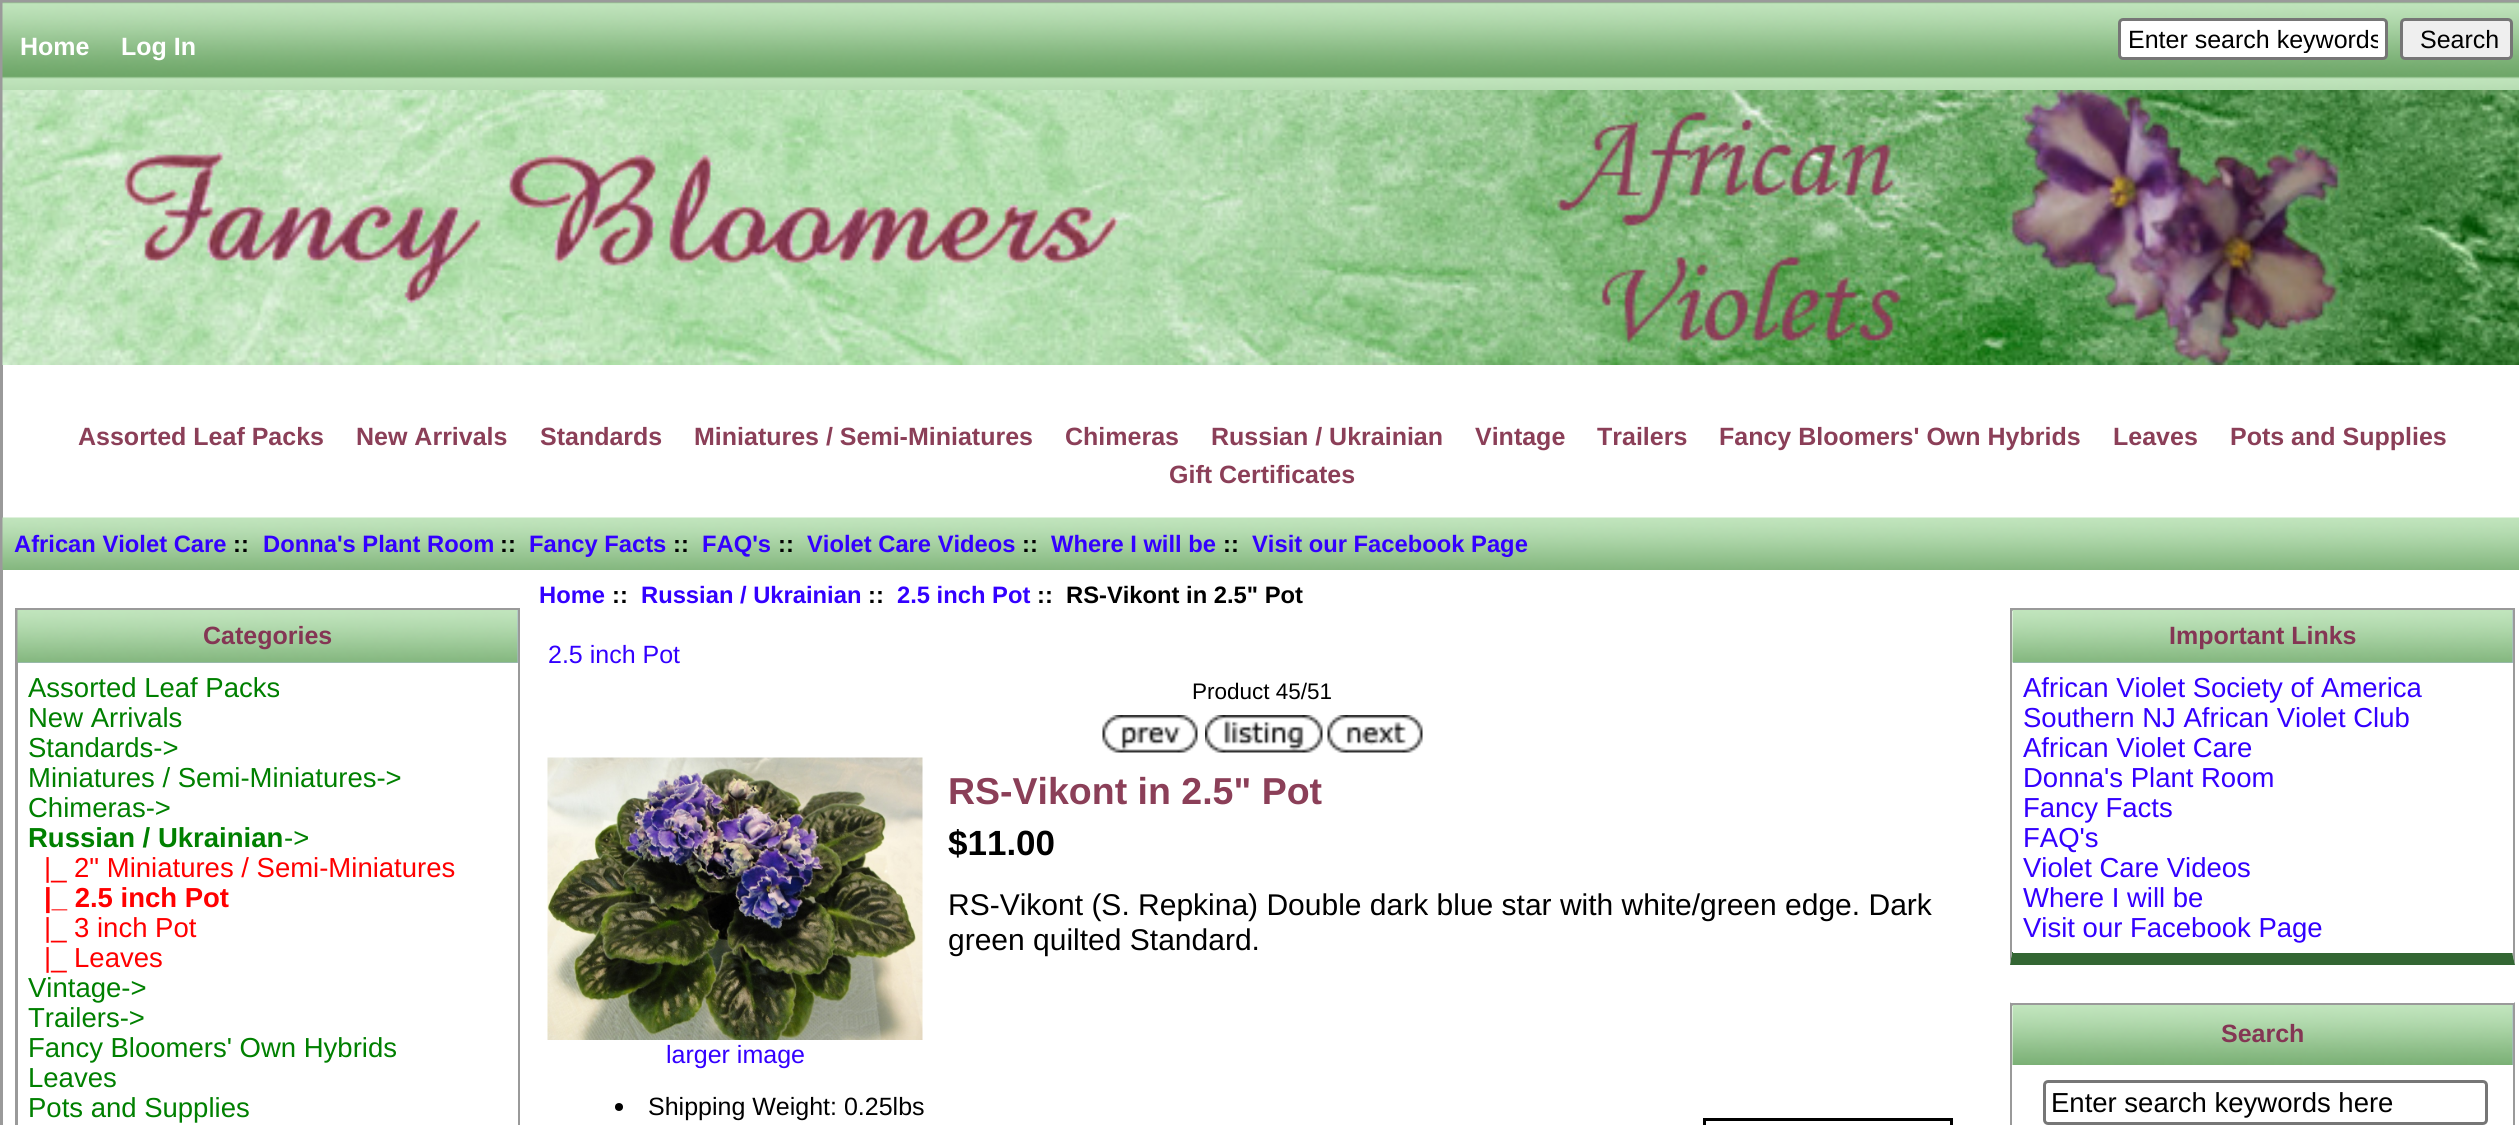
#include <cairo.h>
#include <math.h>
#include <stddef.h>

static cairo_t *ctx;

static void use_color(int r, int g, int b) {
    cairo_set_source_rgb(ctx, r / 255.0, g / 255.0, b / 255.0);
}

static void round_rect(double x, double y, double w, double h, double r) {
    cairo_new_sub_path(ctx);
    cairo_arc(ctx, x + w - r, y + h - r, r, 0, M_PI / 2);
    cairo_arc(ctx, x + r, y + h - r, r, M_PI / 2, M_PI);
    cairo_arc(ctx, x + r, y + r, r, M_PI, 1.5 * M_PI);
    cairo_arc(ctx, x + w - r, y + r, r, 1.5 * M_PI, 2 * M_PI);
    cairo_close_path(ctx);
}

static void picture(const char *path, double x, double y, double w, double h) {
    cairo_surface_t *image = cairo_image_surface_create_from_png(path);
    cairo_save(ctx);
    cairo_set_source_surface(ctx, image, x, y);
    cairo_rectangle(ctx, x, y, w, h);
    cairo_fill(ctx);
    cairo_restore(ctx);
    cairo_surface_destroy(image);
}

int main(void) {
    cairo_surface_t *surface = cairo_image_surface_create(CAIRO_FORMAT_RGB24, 2519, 1125);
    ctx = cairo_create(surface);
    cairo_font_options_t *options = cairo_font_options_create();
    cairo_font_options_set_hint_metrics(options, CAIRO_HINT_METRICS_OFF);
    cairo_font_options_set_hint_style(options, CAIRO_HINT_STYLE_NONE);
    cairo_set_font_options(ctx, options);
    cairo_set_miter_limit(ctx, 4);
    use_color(255, 255, 255);
    cairo_paint(ctx);
    cairo_rectangle(ctx, 1.5, 1.5, 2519, 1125);
    use_color(154, 154, 154);
    cairo_set_line_width(ctx, 3);
    cairo_stroke(ctx);
    picture("img1.png", 2, 2, 2517, 88);
    cairo_select_font_face(ctx, "Liberation Sans", CAIRO_FONT_SLANT_NORMAL, CAIRO_FONT_WEIGHT_BOLD);
    cairo_set_font_size(ctx, 25);
    use_color(255, 255, 255);
    cairo_move_to(ctx, 20, 55);
    cairo_show_text(ctx, "Home");
    cairo_move_to(ctx, 121, 55);
    cairo_show_text(ctx, "Log In");
    round_rect(2119.5, 19.5, 267, 39, 3.5);
    cairo_fill_preserve(ctx);
    use_color(118, 118, 118);
    cairo_stroke(ctx);
    cairo_save(ctx);
    cairo_rectangle(ctx, 2128, 25, 250, 28);
    cairo_clip(ctx);
    cairo_select_font_face(ctx, "Liberation Sans", CAIRO_FONT_SLANT_NORMAL, CAIRO_FONT_WEIGHT_NORMAL);
    use_color(0, 0, 0);
    cairo_move_to(ctx, 2128, 48);
    cairo_show_text(ctx, "Enter search keywords");
    cairo_restore(ctx);
    use_color(239, 239, 239);
    round_rect(2401.5, 19.5, 110, 39, 3.5);
    cairo_fill_preserve(ctx);
    use_color(118, 118, 118);
    cairo_stroke(ctx);
    cairo_select_font_face(ctx, "Liberation Sans", CAIRO_FONT_SLANT_NORMAL, CAIRO_FONT_WEIGHT_NORMAL);
    use_color(0, 0, 0);
    cairo_move_to(ctx, 2420, 48);
    cairo_show_text(ctx, "Search");
    picture("img2.png", 2, 90, 2517, 275);
    picture("img3.png", 124, 152, 995, 152);
    cairo_select_font_face(ctx, "Liberation Sans", CAIRO_FONT_SLANT_NORMAL, CAIRO_FONT_WEIGHT_BOLD);
    use_color(139, 63, 88);
    cairo_move_to(ctx, 78, 445);
    cairo_show_text(ctx, "Assorted Leaf Packs");
    cairo_move_to(ctx, 356, 445);
    cairo_show_text(ctx, "New Arrivals");
    cairo_move_to(ctx, 540, 445);
    cairo_show_text(ctx, "Standards");
    cairo_move_to(ctx, 694, 445);
    cairo_show_text(ctx, "Miniatures / Semi-Miniatures");
    cairo_move_to(ctx, 1065, 445);
    cairo_show_text(ctx, "Chimeras");
    cairo_move_to(ctx, 1211, 445);
    cairo_show_text(ctx, "Russian / Ukrainian");
    cairo_move_to(ctx, 1475, 445);
    cairo_show_text(ctx, "Vintage");
    cairo_move_to(ctx, 1597, 445);
    cairo_show_text(ctx, "Trailers");
    cairo_move_to(ctx, 1719, 445);
    cairo_show_text(ctx, "Fancy Bloomers' Own Hybrids");
    cairo_move_to(ctx, 2113, 445);
    cairo_show_text(ctx, "Leaves");
    cairo_move_to(ctx, 2230, 445);
    cairo_show_text(ctx, "Pots and Supplies");
    cairo_move_to(ctx, 1169, 483);
    cairo_show_text(ctx, "Gift Certificates");
    picture("img4.png", 2, 517, 2517, 53);
    cairo_set_font_size(ctx, 23.75);
    use_color(51, 0, 255);
    cairo_move_to(ctx, 14, 552);
    cairo_show_text(ctx, "African Violet Care");
    use_color(0, 0, 0);
    cairo_move_to(ctx, 233, 552);
    cairo_show_text(ctx, "::");
    use_color(51, 0, 255);
    cairo_move_to(ctx, 263, 552);
    cairo_show_text(ctx, "Donna's Plant Room");
    use_color(0, 0, 0);
    cairo_move_to(ctx, 500, 552);
    cairo_show_text(ctx, "::");
    use_color(51, 0, 255);
    cairo_move_to(ctx, 529, 552);
    cairo_show_text(ctx, "Fancy Facts");
    use_color(0, 0, 0);
    cairo_move_to(ctx, 673, 552);
    cairo_show_text(ctx, "::");
    use_color(51, 0, 255);
    cairo_move_to(ctx, 702, 552);
    cairo_show_text(ctx, "FAQ's");
    use_color(0, 0, 0);
    cairo_move_to(ctx, 778, 552);
    cairo_show_text(ctx, "::");
    use_color(51, 0, 255);
    cairo_move_to(ctx, 807, 552);
    cairo_show_text(ctx, "Violet Care Videos");
    use_color(0, 0, 0);
    cairo_move_to(ctx, 1022, 552);
    cairo_show_text(ctx, "::");
    use_color(51, 0, 255);
    cairo_move_to(ctx, 1051, 552);
    cairo_show_text(ctx, "Where I will be");
    use_color(0, 0, 0);
    cairo_move_to(ctx, 1223, 552);
    cairo_show_text(ctx, "::");
    use_color(51, 0, 255);
    cairo_move_to(ctx, 1252, 552);
    cairo_show_text(ctx, "Visit our Facebook Page");
    use_color(154, 154, 154);
    cairo_rectangle(ctx, 15, 608, 505, 2);
    cairo_fill(ctx);
    cairo_new_path(ctx);
    cairo_move_to(ctx, 520, 608);
    cairo_line_to(ctx, 520, 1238);
    cairo_line_to(ctx, 518, 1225);
    cairo_line_to(ctx, 518, 610);
    cairo_close_path(ctx);
    cairo_fill(ctx);
    cairo_new_path(ctx);
    cairo_move_to(ctx, 15, 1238);
    cairo_line_to(ctx, 15, 608);
    cairo_line_to(ctx, 18, 610);
    cairo_line_to(ctx, 18, 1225);
    cairo_close_path(ctx);
    cairo_fill(ctx);
    use_color(171, 187, 211);
    cairo_rectangle(ctx, 18, 610, 500, 53);
    cairo_fill(ctx);
    picture("img5.png", 17, 610, 501, 53);
    cairo_set_font_size(ctx, 25);
    use_color(132, 54, 84);
    cairo_move_to(ctx, 203, 644);
    cairo_show_text(ctx, "Categories");
    cairo_select_font_face(ctx, "Liberation Sans", CAIRO_FONT_SLANT_NORMAL, CAIRO_FONT_WEIGHT_NORMAL);
    cairo_set_font_size(ctx, 27.5);
    use_color(0, 128, 0);
    cairo_move_to(ctx, 28, 697);
    cairo_show_text(ctx, "Assorted Leaf Packs");
    cairo_move_to(ctx, 28, 727);
    cairo_show_text(ctx, "New Arrivals");
    cairo_move_to(ctx, 28, 757);
    cairo_show_text(ctx, "Standards->");
    cairo_move_to(ctx, 28, 787);
    cairo_show_text(ctx, "Miniatures / Semi-Miniatures->");
    cairo_move_to(ctx, 28, 817);
    cairo_show_text(ctx, "Chimeras->");
    cairo_select_font_face(ctx, "Liberation Sans", CAIRO_FONT_SLANT_NORMAL, CAIRO_FONT_WEIGHT_BOLD);
    cairo_move_to(ctx, 28, 847);
    cairo_show_text(ctx, "Russian / Ukrainian");
    cairo_select_font_face(ctx, "Liberation Sans", CAIRO_FONT_SLANT_NORMAL, CAIRO_FONT_WEIGHT_NORMAL);
    cairo_move_to(ctx, 284, 847);
    cairo_show_text(ctx, "->");
    use_color(255, 0, 0);
    cairo_move_to(ctx, 44, 877);
    cairo_show_text(ctx, "|_ 2\" Miniatures / Semi-Miniatures");
    cairo_select_font_face(ctx, "Liberation Sans", CAIRO_FONT_SLANT_NORMAL, CAIRO_FONT_WEIGHT_BOLD);
    cairo_move_to(ctx, 44, 907);
    cairo_show_text(ctx, "|_ 2.5 inch Pot");
    cairo_select_font_face(ctx, "Liberation Sans", CAIRO_FONT_SLANT_NORMAL, CAIRO_FONT_WEIGHT_NORMAL);
    cairo_move_to(ctx, 44, 937);
    cairo_show_text(ctx, "|_ 3 inch Pot");
    cairo_move_to(ctx, 44, 967);
    cairo_show_text(ctx, "|_ Leaves");
    use_color(0, 128, 0);
    cairo_move_to(ctx, 28, 997);
    cairo_show_text(ctx, "Vintage->");
    cairo_move_to(ctx, 28, 1027);
    cairo_show_text(ctx, "Trailers->");
    cairo_move_to(ctx, 28, 1057);
    cairo_show_text(ctx, "Fancy Bloomers' Own Hybrids");
    cairo_move_to(ctx, 28, 1087);
    cairo_show_text(ctx, "Leaves");
    cairo_move_to(ctx, 28, 1117);
    cairo_show_text(ctx, "Pots and Supplies");
    cairo_select_font_face(ctx, "Liberation Sans", CAIRO_FONT_SLANT_NORMAL, CAIRO_FONT_WEIGHT_BOLD);
    cairo_set_font_size(ctx, 23.75);
    use_color(51, 0, 255);
    cairo_move_to(ctx, 539, 603);
    cairo_show_text(ctx, "Home");
    use_color(0, 0, 0);
    cairo_move_to(ctx, 612, 603);
    cairo_show_text(ctx, "::");
    use_color(51, 0, 255);
    cairo_move_to(ctx, 641, 603);
    cairo_show_text(ctx, "Russian / Ukrainian");
    use_color(0, 0, 0);
    cairo_move_to(ctx, 868, 603);
    cairo_show_text(ctx, "::");
    use_color(51, 0, 255);
    cairo_move_to(ctx, 897, 603);
    cairo_show_text(ctx, "2.5 inch Pot");
    use_color(0, 0, 0);
    cairo_move_to(ctx, 1037, 603);
    cairo_show_text(ctx, "::  RS-Vikont in 2.5\" Pot");
    cairo_select_font_face(ctx, "Liberation Sans", CAIRO_FONT_SLANT_NORMAL, CAIRO_FONT_WEIGHT_NORMAL);
    cairo_set_font_size(ctx, 25);
    use_color(51, 0, 255);
    cairo_move_to(ctx, 548, 663);
    cairo_show_text(ctx, "2.5 inch Pot");
    cairo_set_font_size(ctx, 22.5);
    use_color(0, 0, 0);
    cairo_move_to(ctx, 1192, 699);
    cairo_show_text(ctx, "Product 45/51");
    picture("img6.png", 1102, 715, 96, 38);
    picture("img7.png", 1205, 715, 118, 38);
    picture("img8.png", 1327, 715, 96, 38);
    cairo_select_font_face(ctx, "Liberation Sans", CAIRO_FONT_SLANT_NORMAL, CAIRO_FONT_WEIGHT_BOLD);
    cairo_set_font_size(ctx, 37.5);
    use_color(139, 63, 88);
    cairo_move_to(ctx, 948, 804);
    cairo_show_text(ctx, "RS-Vikont in 2.5\" Pot");
    cairo_set_font_size(ctx, 35);
    use_color(0, 0, 0);
    cairo_move_to(ctx, 948, 855);
    cairo_show_text(ctx, "$11.00");
    cairo_select_font_face(ctx, "Liberation Sans", CAIRO_FONT_SLANT_NORMAL, CAIRO_FONT_WEIGHT_NORMAL);
    cairo_set_font_size(ctx, 30);
    cairo_move_to(ctx, 948, 915);
    cairo_show_text(ctx, "RS-Vikont (S. Repkina) Double dark blue star with white/green edge. Dark");
    cairo_move_to(ctx, 948, 950);
    cairo_show_text(ctx, "green quilted Standard.");
    picture("img9.png", 547, 757, 376, 283);
    cairo_set_font_size(ctx, 25);
    use_color(51, 0, 255);
    cairo_move_to(ctx, 666, 1063);
    cairo_show_text(ctx, "larger image");
    use_color(0, 0, 0);
    cairo_new_path(ctx);
    cairo_arc(ctx, 619, 1107, 4, 0, 2 * M_PI);
    cairo_fill(ctx);
    cairo_move_to(ctx, 648, 1115);
    cairo_show_text(ctx, "Shipping Weight: 0.25lbs");
    cairo_rectangle(ctx, 1704.5, 1119.5, 247, 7);
    cairo_stroke(ctx);
    use_color(154, 154, 154);
    cairo_rectangle(ctx, 2010, 608, 505, 3);
    cairo_fill(ctx);
    cairo_new_path(ctx);
    cairo_move_to(ctx, 2515, 608);
    cairo_line_to(ctx, 2515, 965);
    cairo_line_to(ctx, 2512, 952);
    cairo_line_to(ctx, 2512, 610);
    cairo_close_path(ctx);
    cairo_fill(ctx);
    use_color(51, 102, 51);
    cairo_new_path(ctx);
    cairo_move_to(ctx, 2515, 965);
    cairo_line_to(ctx, 2010, 965);
    cairo_line_to(ctx, 2012, 952);
    cairo_line_to(ctx, 2512, 952);
    cairo_close_path(ctx);
    cairo_fill(ctx);
    use_color(154, 154, 154);
    cairo_new_path(ctx);
    cairo_move_to(ctx, 2010, 965);
    cairo_line_to(ctx, 2010, 608);
    cairo_line_to(ctx, 2012, 610);
    cairo_line_to(ctx, 2012, 952);
    cairo_close_path(ctx);
    cairo_fill(ctx);
    use_color(171, 187, 211);
    cairo_rectangle(ctx, 2013, 610, 500, 53);
    cairo_fill(ctx);
    picture("img10.png", 2012, 610, 501, 53);
    cairo_select_font_face(ctx, "Liberation Sans", CAIRO_FONT_SLANT_NORMAL, CAIRO_FONT_WEIGHT_BOLD);
    use_color(132, 54, 84);
    cairo_move_to(ctx, 2169, 644);
    cairo_show_text(ctx, "Important Links");
    use_color(255, 255, 255);
    cairo_rectangle(ctx, 2013, 663, 500, 290);
    cairo_fill(ctx);
    cairo_select_font_face(ctx, "Liberation Sans", CAIRO_FONT_SLANT_NORMAL, CAIRO_FONT_WEIGHT_NORMAL);
    cairo_set_font_size(ctx, 27.5);
    use_color(51, 0, 255);
    cairo_move_to(ctx, 2023, 697);
    cairo_show_text(ctx, "African Violet Society of America");
    cairo_move_to(ctx, 2023, 727);
    cairo_show_text(ctx, "Southern NJ African Violet Club");
    cairo_move_to(ctx, 2023, 757);
    cairo_show_text(ctx, "African Violet Care");
    cairo_move_to(ctx, 2023, 787);
    cairo_show_text(ctx, "Donna's Plant Room");
    cairo_move_to(ctx, 2023, 817);
    cairo_show_text(ctx, "Fancy Facts");
    cairo_move_to(ctx, 2023, 847);
    cairo_show_text(ctx, "FAQ's");
    cairo_move_to(ctx, 2023, 877);
    cairo_show_text(ctx, "Violet Care Videos");
    cairo_move_to(ctx, 2023, 907);
    cairo_show_text(ctx, "Where I will be");
    cairo_move_to(ctx, 2023, 937);
    cairo_show_text(ctx, "Visit our Facebook Page");
    use_color(154, 154, 154);
    cairo_rectangle(ctx, 2010, 1003, 505, 3);
    cairo_fill(ctx);
    cairo_new_path(ctx);
    cairo_move_to(ctx, 2515, 1002);
    cairo_line_to(ctx, 2515, 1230);
    cairo_line_to(ctx, 2512, 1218);
    cairo_line_to(ctx, 2512, 1005);
    cairo_close_path(ctx);
    cairo_fill(ctx);
    cairo_new_path(ctx);
    cairo_move_to(ctx, 2010, 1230);
    cairo_line_to(ctx, 2010, 1002);
    cairo_line_to(ctx, 2012, 1005);
    cairo_line_to(ctx, 2012, 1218);
    cairo_close_path(ctx);
    cairo_fill(ctx);
    use_color(171, 187, 211);
    cairo_rectangle(ctx, 2512, 1005, 1, 60);
    cairo_fill(ctx);
    picture("img11.png", 2012, 1005, 501, 60);
    cairo_select_font_face(ctx, "Liberation Sans", CAIRO_FONT_SLANT_NORMAL, CAIRO_FONT_WEIGHT_BOLD);
    cairo_set_font_size(ctx, 25);
    use_color(132, 54, 84);
    cairo_move_to(ctx, 2221, 1042);
    cairo_show_text(ctx, "Search");
    use_color(255, 255, 255);
    cairo_rectangle(ctx, 2512, 1065, 1, 60);
    cairo_fill(ctx);
    round_rect(2044.5, 1081.5, 442, 42, 3.5);
    use_color(118, 118, 118);
    cairo_stroke(ctx);
    cairo_select_font_face(ctx, "Liberation Sans", CAIRO_FONT_SLANT_NORMAL, CAIRO_FONT_WEIGHT_NORMAL);
    cairo_set_font_size(ctx, 27.5);
    use_color(0, 0, 0);
    cairo_move_to(ctx, 2051, 1112);
    cairo_show_text(ctx, "Enter search keywords here");
    cairo_surface_write_to_png(surface, "result.png");
    cairo_font_options_destroy(options);
    cairo_destroy(ctx);
    cairo_surface_destroy(surface);
    return 0;
}
